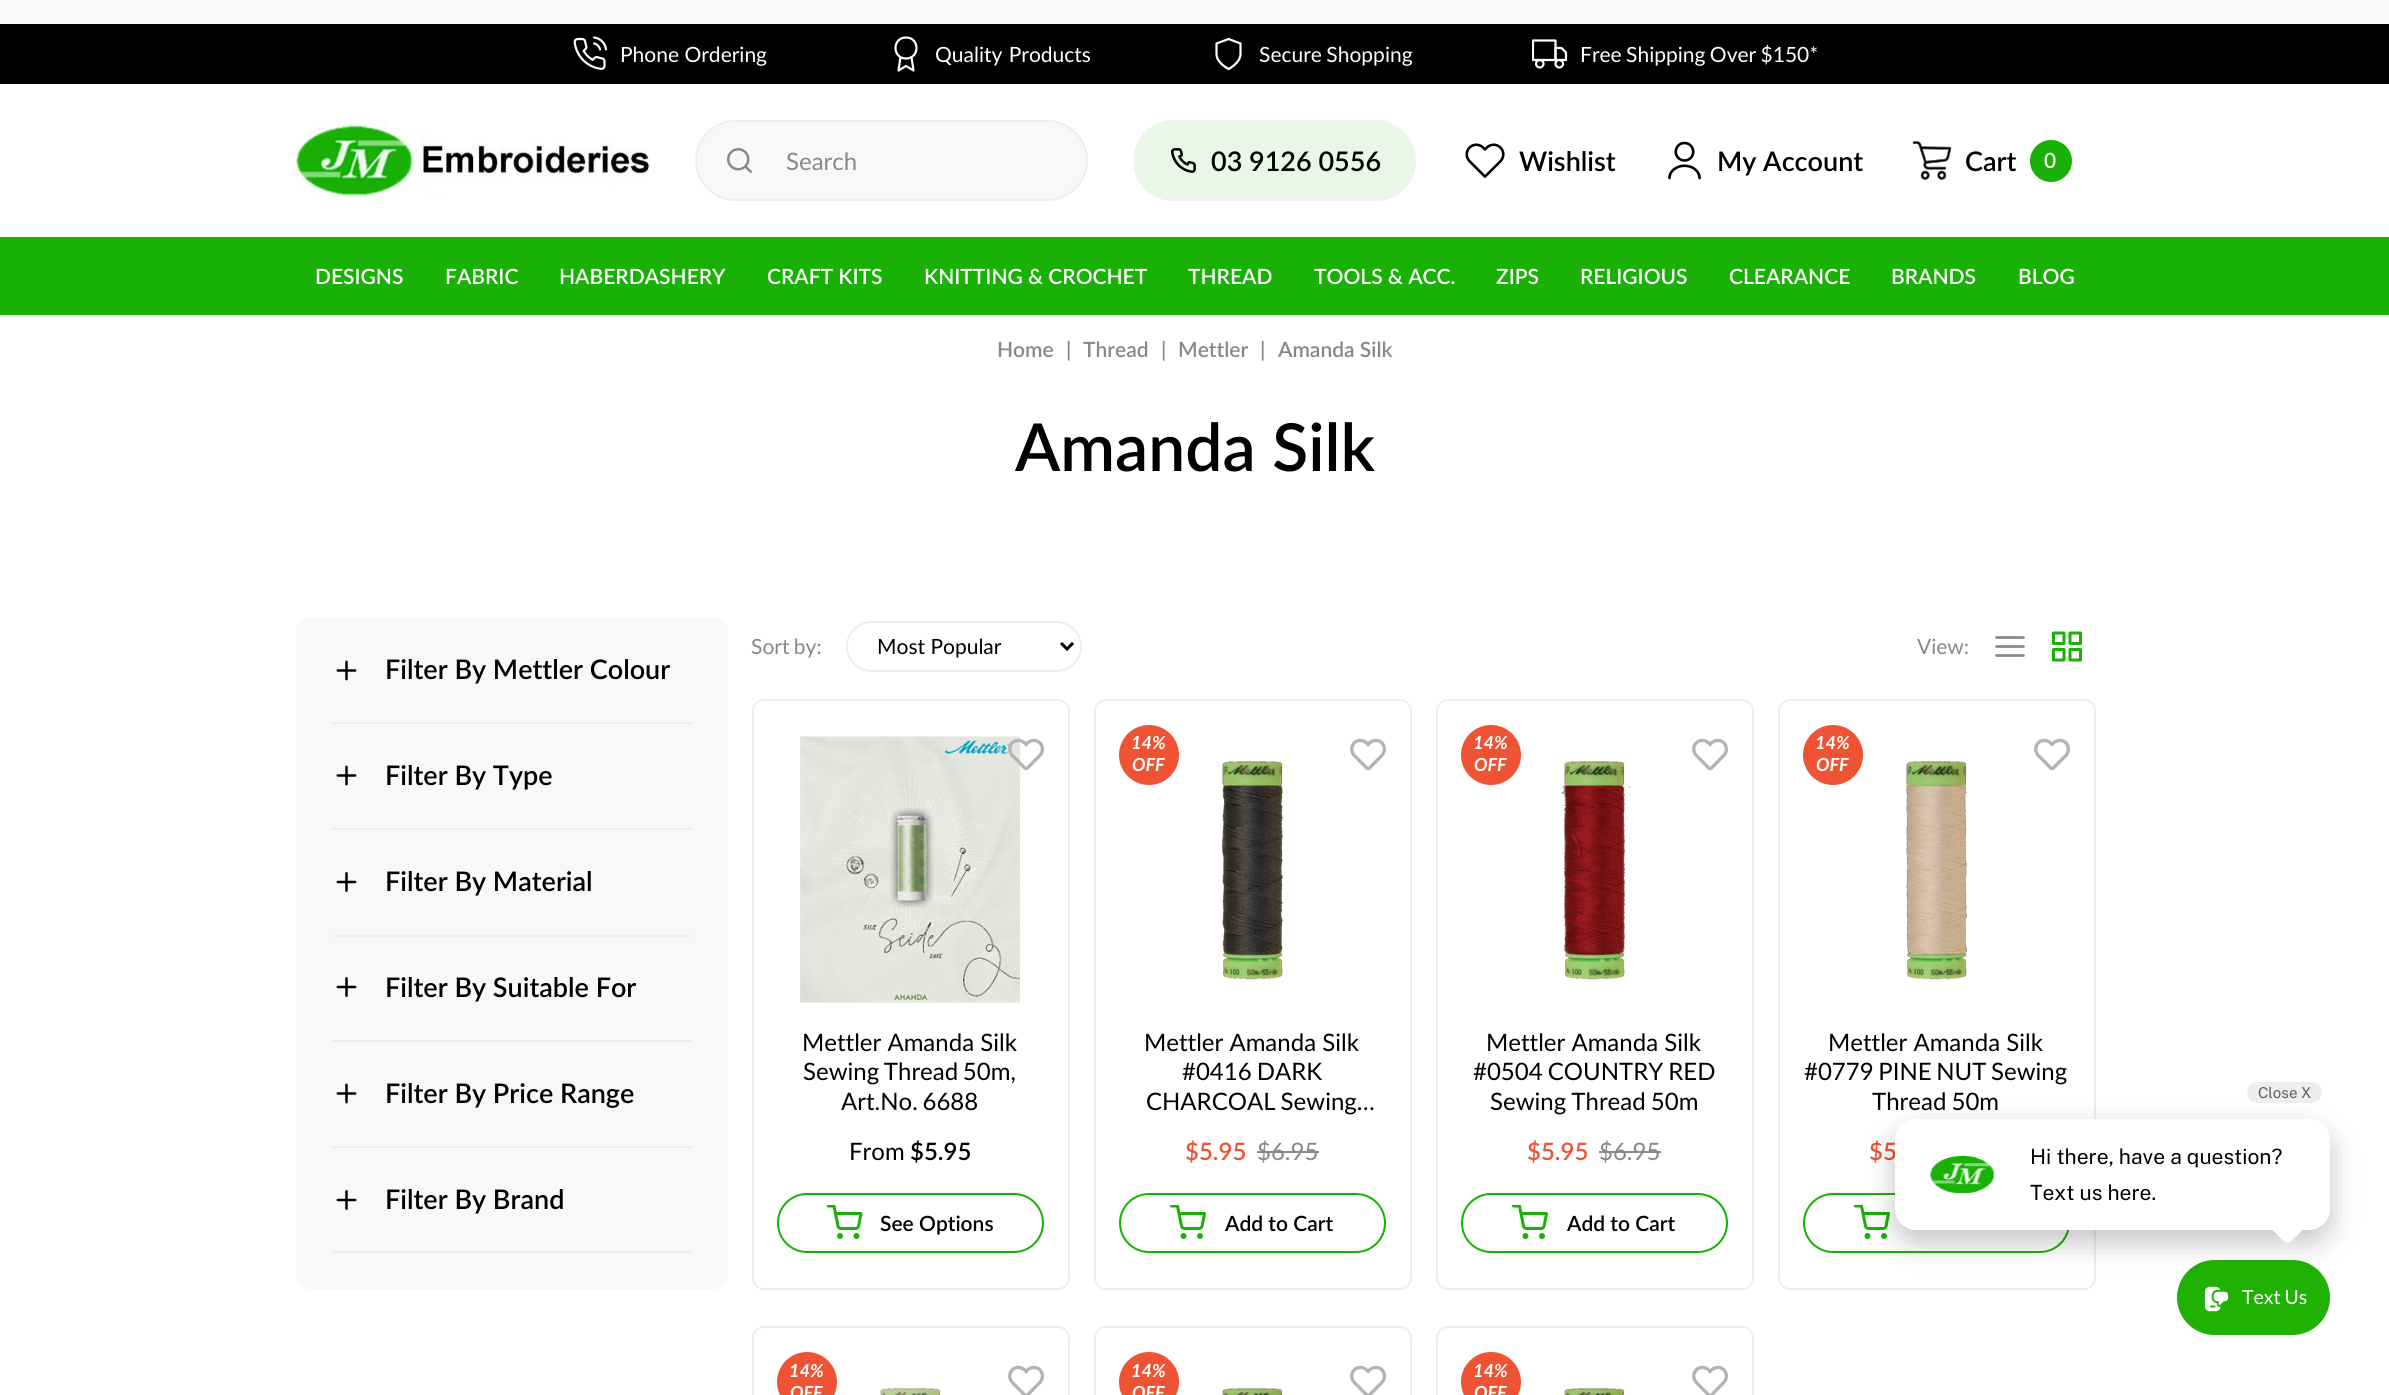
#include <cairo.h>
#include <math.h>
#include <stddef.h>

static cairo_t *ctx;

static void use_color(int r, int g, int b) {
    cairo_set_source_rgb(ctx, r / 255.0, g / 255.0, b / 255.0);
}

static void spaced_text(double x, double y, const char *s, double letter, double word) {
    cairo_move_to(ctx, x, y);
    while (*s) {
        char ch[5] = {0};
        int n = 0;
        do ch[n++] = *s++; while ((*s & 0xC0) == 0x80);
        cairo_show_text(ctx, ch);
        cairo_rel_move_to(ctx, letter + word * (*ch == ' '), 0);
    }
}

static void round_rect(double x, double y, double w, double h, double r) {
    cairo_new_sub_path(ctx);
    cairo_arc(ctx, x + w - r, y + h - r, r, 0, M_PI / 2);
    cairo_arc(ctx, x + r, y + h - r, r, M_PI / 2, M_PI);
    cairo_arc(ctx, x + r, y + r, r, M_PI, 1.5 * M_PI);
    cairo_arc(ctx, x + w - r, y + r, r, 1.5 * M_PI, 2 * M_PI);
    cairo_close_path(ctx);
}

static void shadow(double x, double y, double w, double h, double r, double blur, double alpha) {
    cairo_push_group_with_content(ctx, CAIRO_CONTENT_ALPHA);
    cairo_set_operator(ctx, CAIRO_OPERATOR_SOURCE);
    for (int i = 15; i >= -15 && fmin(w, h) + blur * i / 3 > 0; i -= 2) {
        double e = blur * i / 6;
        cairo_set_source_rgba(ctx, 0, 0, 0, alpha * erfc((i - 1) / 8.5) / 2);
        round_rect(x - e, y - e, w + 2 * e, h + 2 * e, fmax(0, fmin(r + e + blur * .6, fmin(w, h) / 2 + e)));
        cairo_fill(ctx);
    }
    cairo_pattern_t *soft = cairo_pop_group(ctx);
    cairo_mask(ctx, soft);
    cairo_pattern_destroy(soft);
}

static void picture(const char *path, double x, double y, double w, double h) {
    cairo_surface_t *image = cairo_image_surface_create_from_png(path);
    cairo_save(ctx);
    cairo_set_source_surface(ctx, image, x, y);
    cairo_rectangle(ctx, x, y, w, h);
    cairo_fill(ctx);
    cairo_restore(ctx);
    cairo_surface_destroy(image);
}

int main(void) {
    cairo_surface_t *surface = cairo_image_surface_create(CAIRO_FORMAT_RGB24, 2389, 1395);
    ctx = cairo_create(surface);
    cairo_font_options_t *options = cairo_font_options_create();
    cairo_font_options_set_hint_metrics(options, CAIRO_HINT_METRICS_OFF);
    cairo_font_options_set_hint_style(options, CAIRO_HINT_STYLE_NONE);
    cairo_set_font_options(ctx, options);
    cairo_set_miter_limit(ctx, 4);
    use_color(255, 255, 255);
    cairo_paint(ctx);
    use_color(248, 248, 248);
    cairo_rectangle(ctx, 0, 0, 2389, 24);
    cairo_fill(ctx);
    use_color(0, 0, 0);
    cairo_rectangle(ctx, 0, 24, 2389, 60);
    cairo_fill(ctx);
    picture("img1.png", 573, 36, 35, 34);
    cairo_select_font_face(ctx, "Lato", CAIRO_FONT_SLANT_NORMAL, CAIRO_FONT_WEIGHT_NORMAL);
    cairo_set_font_size(ctx, 21);
    use_color(255, 255, 255);
    cairo_move_to(ctx, 620, 62);
    cairo_show_text(ctx, "Phone Ordering");
    cairo_new_path(ctx);
    cairo_move_to(ctx, 906, 58.5);
    cairo_curve_to(ctx, 920, 58.5, 920, 37.5, 906, 37.5);
    cairo_curve_to(ctx, 892, 37.5, 892, 58.5, 906, 58.5);
    cairo_close_path(ctx);
    cairo_move_to(ctx, 900.5, 57);
    cairo_line_to(ctx, 898.5, 70.5);
    cairo_line_to(ctx, 906, 66);
    cairo_line_to(ctx, 913.5, 70.5);
    cairo_line_to(ctx, 911.5, 57);
    cairo_set_line_width(ctx, 2.2);
    cairo_set_line_cap(ctx, CAIRO_LINE_CAP_ROUND);
    cairo_set_line_join(ctx, CAIRO_LINE_JOIN_ROUND);
    cairo_stroke(ctx);
    spaced_text(935, 62, "Quality Products", 0, 1);
    cairo_new_path(ctx);
    cairo_move_to(ctx, 1228.5, 69);
    cairo_curve_to(ctx, 1228.5, 69, 1240.5, 63, 1240.5, 54);
    cairo_line_to(ctx, 1240.5, 43.5);
    cairo_line_to(ctx, 1228.5, 39);
    cairo_line_to(ctx, 1216.5, 43.5);
    cairo_line_to(ctx, 1216.5, 54);
    cairo_curve_to(ctx, 1216.5, 63, 1228.5, 69, 1228.5, 69);
    cairo_close_path(ctx);
    cairo_stroke(ctx);
    spaced_text(1259, 62, "Secure Shopping", 0, -1);
    picture("img2.png", 1532, 39, 36, 30);
    spaced_text(1580, 62, "Free Shipping Over $150*", 0, -1);
    picture("img3.png", 295, 120, 355, 80);
    use_color(248, 248, 248);
    round_rect(696, 121, 391, 79, 39.5);
    cairo_fill_preserve(ctx);
    use_color(238, 238, 238);
    cairo_set_line_width(ctx, 2);
    cairo_set_line_cap(ctx, CAIRO_LINE_CAP_BUTT);
    cairo_set_line_join(ctx, CAIRO_LINE_JOIN_MITER);
    cairo_stroke(ctx);
    picture("img4.png", 727, 148, 25, 25);
    cairo_set_font_size(ctx, 24);
    use_color(136, 136, 136);
    cairo_move_to(ctx, 786, 170);
    cairo_show_text(ctx, "Search");
    use_color(232, 247, 230);
    round_rect(1133, 120, 283, 81, 40.5);
    cairo_fill(ctx);
    picture("img5.png", 1171, 148, 25, 25);
    cairo_select_font_face(ctx, "Lato SemiBold", CAIRO_FONT_SLANT_NORMAL, CAIRO_FONT_WEIGHT_NORMAL);
    cairo_set_font_size(ctx, 27);
    use_color(0, 0, 0);
    cairo_move_to(ctx, 1211, 171);
    cairo_show_text(ctx, "03 9126 0556");
    picture("img6.png", 1465, 143, 40, 35);
    cairo_move_to(ctx, 1519, 171);
    cairo_show_text(ctx, "Wishlist");
    picture("img7.png", 1668, 141, 33, 39);
    cairo_move_to(ctx, 1717, 171);
    cairo_show_text(ctx, "My Account");
    picture("img8.png", 1912, 141, 40, 39);
    cairo_move_to(ctx, 1965, 171);
    cairo_show_text(ctx, "Cart");
    use_color(25, 177, 5);
    cairo_new_path(ctx);
    cairo_arc(ctx, 2051, 161, 21, 0, 2 * M_PI);
    cairo_fill(ctx);
    cairo_set_font_size(ctx, 21);
    use_color(255, 255, 255);
    cairo_move_to(ctx, 2044, 168);
    cairo_show_text(ctx, "0");
    use_color(25, 177, 5);
    cairo_rectangle(ctx, 0, 237, 2389, 78);
    cairo_fill(ctx);
    use_color(255, 255, 255);
    cairo_move_to(ctx, 315, 284);
    cairo_show_text(ctx, "DESIGNS");
    cairo_move_to(ctx, 445, 284);
    cairo_show_text(ctx, "FABRIC");
    cairo_move_to(ctx, 559, 284);
    cairo_show_text(ctx, "HABERDASHERY");
    cairo_move_to(ctx, 767, 284);
    cairo_show_text(ctx, "CRAFT KITS");
    cairo_move_to(ctx, 924, 284);
    cairo_show_text(ctx, "KNITTING & CROCHET");
    cairo_move_to(ctx, 1188, 284);
    cairo_show_text(ctx, "THREAD");
    cairo_move_to(ctx, 1314, 284);
    cairo_show_text(ctx, "TOOLS & ACC.");
    cairo_move_to(ctx, 1496, 284);
    cairo_show_text(ctx, "ZIPS");
    cairo_move_to(ctx, 1580, 284);
    cairo_show_text(ctx, "RELIGIOUS");
    cairo_move_to(ctx, 1729, 284);
    cairo_show_text(ctx, "CLEARANCE");
    cairo_move_to(ctx, 1891, 284);
    cairo_show_text(ctx, "BRANDS");
    cairo_move_to(ctx, 2018, 284);
    cairo_show_text(ctx, "BLOG");
    use_color(136, 136, 136);
    cairo_move_to(ctx, 997, 357);
    cairo_show_text(ctx, "Home");
    cairo_move_to(ctx, 1066, 357);
    cairo_show_text(ctx, "|");
    cairo_move_to(ctx, 1083, 357);
    cairo_show_text(ctx, "Thread");
    cairo_move_to(ctx, 1161, 357);
    cairo_show_text(ctx, "|");
    cairo_move_to(ctx, 1178, 357);
    cairo_show_text(ctx, "Mettler");
    cairo_move_to(ctx, 1260, 357);
    cairo_show_text(ctx, "|");
    cairo_move_to(ctx, 1278, 357);
    cairo_show_text(ctx, "Amanda Silk");
    cairo_set_font_size(ctx, 66);
    use_color(0, 0, 0);
    cairo_move_to(ctx, 1015, 471);
    cairo_show_text(ctx, "Amanda Silk");
    use_color(248, 248, 248);
    round_rect(296, 618, 432, 671, 12);
    cairo_fill(ctx);
    use_color(238, 238, 238);
    cairo_rectangle(ctx, 332, 722, 360, 2);
    cairo_fill(ctx);
    picture("img9.png", 336, 660, 21, 21);
    cairo_set_font_size(ctx, 27);
    use_color(0, 0, 0);
    cairo_move_to(ctx, 385, 679);
    cairo_show_text(ctx, "Filter By Mettler Colour");
    use_color(238, 238, 238);
    cairo_rectangle(ctx, 332, 828, 360, 2);
    cairo_fill(ctx);
    picture("img9.png", 336, 765, 21, 21);
    use_color(0, 0, 0);
    cairo_move_to(ctx, 385, 785);
    cairo_show_text(ctx, "Filter By Type");
    use_color(238, 238, 238);
    cairo_rectangle(ctx, 332, 935, 360, 2);
    cairo_fill(ctx);
    picture("img10.png", 336, 872, 21, 20);
    use_color(0, 0, 0);
    cairo_move_to(ctx, 385, 891);
    cairo_show_text(ctx, "Filter By Material");
    use_color(238, 238, 238);
    cairo_rectangle(ctx, 332, 1040, 360, 2);
    cairo_fill(ctx);
    picture("img10.png", 336, 977, 21, 20);
    use_color(0, 0, 0);
    cairo_move_to(ctx, 385, 997);
    cairo_show_text(ctx, "Filter By Suitable For");
    use_color(238, 238, 238);
    cairo_rectangle(ctx, 332, 1146, 360, 2);
    cairo_fill(ctx);
    picture("img9.png", 336, 1083, 21, 21);
    use_color(0, 0, 0);
    cairo_move_to(ctx, 385, 1103);
    cairo_show_text(ctx, "Filter By Price Range");
    use_color(238, 238, 238);
    cairo_rectangle(ctx, 332, 1251, 360, 2);
    cairo_fill(ctx);
    picture("img10.png", 336, 1190, 21, 20);
    use_color(0, 0, 0);
    cairo_move_to(ctx, 385, 1209);
    cairo_show_text(ctx, "Filter By Brand");
    cairo_select_font_face(ctx, "Lato", CAIRO_FONT_SLANT_NORMAL, CAIRO_FONT_WEIGHT_NORMAL);
    cairo_set_font_size(ctx, 21);
    use_color(136, 136, 136);
    spaced_text(751, 654, "Sort by:", 0, -1);
    round_rect(847, 622, 234, 49, 24.5);
    use_color(238, 238, 238);
    cairo_stroke(ctx);
    cairo_new_path(ctx);
    cairo_move_to(ctx, 1061, 643);
    cairo_line_to(ctx, 1067, 649);
    cairo_line_to(ctx, 1073, 643);
    use_color(0, 0, 0);
    cairo_set_line_width(ctx, 3);
    cairo_stroke(ctx);
    cairo_move_to(ctx, 877, 654);
    cairo_show_text(ctx, "Most Popular");
    use_color(136, 136, 136);
    cairo_move_to(ctx, 1917, 654);
    cairo_show_text(ctx, "View:");
    cairo_new_path(ctx);
    cairo_move_to(ctx, 1996.5, 655.5);
    cairo_line_to(ctx, 2023.5, 655.5);
    cairo_move_to(ctx, 1996.5, 646.5);
    cairo_line_to(ctx, 2023.5, 646.5);
    cairo_move_to(ctx, 1996.5, 637.5);
    cairo_line_to(ctx, 2023.5, 637.5);
    cairo_set_line_width(ctx, 2.7);
    cairo_set_line_cap(ctx, CAIRO_LINE_CAP_ROUND);
    cairo_set_line_join(ctx, CAIRO_LINE_JOIN_ROUND);
    cairo_stroke(ctx);
    picture("img11.png", 2052, 631, 30, 31);
    round_rect(753, 700, 316, 589, 11);
    use_color(238, 238, 238);
    cairo_set_line_width(ctx, 2);
    cairo_set_line_cap(ctx, CAIRO_LINE_CAP_BUTT);
    cairo_set_line_join(ctx, CAIRO_LINE_JOIN_MITER);
    cairo_stroke(ctx);
    picture("img12.png", 800, 736, 220, 267);
    picture("img13.png", 1008, 738, 37, 33);
    cairo_set_font_size(ctx, 24);
    use_color(0, 0, 0);
    cairo_move_to(ctx, 802, 1051);
    cairo_show_text(ctx, "Mettler Amanda Silk");
    spaced_text(803, 1080, "Sewing Thread 50m,", 0, -1.5);
    spaced_text(841, 1110, "Art.No. 6688", 0, -1.5);
    cairo_move_to(ctx, 849, 1160);
    cairo_show_text(ctx, "From");
    cairo_select_font_face(ctx, "Lato SemiBold", CAIRO_FONT_SLANT_NORMAL, CAIRO_FONT_WEIGHT_NORMAL);
    cairo_move_to(ctx, 910, 1160);
    cairo_show_text(ctx, "$5.95");
    round_rect(778, 1194, 265, 58, 29);
    use_color(25, 177, 5);
    cairo_stroke(ctx);
    picture("img14.png", 827, 1205, 36, 34);
    cairo_set_font_size(ctx, 21);
    use_color(0, 0, 0);
    cairo_move_to(ctx, 880, 1231);
    cairo_show_text(ctx, "See Options");
    round_rect(1095, 700, 316, 589, 11);
    use_color(238, 238, 238);
    cairo_stroke(ctx);
    use_color(238, 84, 51);
    cairo_arc(ctx, 1149, 755, 30, 0, 2 * M_PI);
    cairo_fill(ctx);
    cairo_select_font_face(ctx, "Lato", CAIRO_FONT_SLANT_ITALIC, CAIRO_FONT_WEIGHT_BOLD);
    cairo_set_font_size(ctx, 18);
    use_color(255, 255, 255);
    cairo_move_to(ctx, 1131, 749);
    cairo_show_text(ctx, "14%");
    cairo_move_to(ctx, 1132, 771);
    cairo_show_text(ctx, "OFF");
    picture("img15.png", 1350, 738, 37, 33);
    picture("img16.png", 1221, 761, 62, 219);
    cairo_select_font_face(ctx, "Lato", CAIRO_FONT_SLANT_NORMAL, CAIRO_FONT_WEIGHT_NORMAL);
    cairo_set_font_size(ctx, 24);
    use_color(0, 0, 0);
    cairo_move_to(ctx, 1144, 1051);
    cairo_show_text(ctx, "Mettler Amanda Silk");
    spaced_text(1182, 1080, "#0416 DARK", 0, -1);
    spaced_text(1146, 1110, "CHARCOAL Sewing…", 0, -1);
    cairo_select_font_face(ctx, "Lato SemiBold", CAIRO_FONT_SLANT_NORMAL, CAIRO_FONT_WEIGHT_NORMAL);
    use_color(238, 84, 51);
    cairo_move_to(ctx, 1185, 1160);
    cairo_show_text(ctx, "$5.95");
    cairo_select_font_face(ctx, "Lato", CAIRO_FONT_SLANT_NORMAL, CAIRO_FONT_WEIGHT_NORMAL);
    use_color(136, 136, 136);
    cairo_move_to(ctx, 1257, 1160);
    cairo_show_text(ctx, "$6.95");
    cairo_rectangle(ctx, 1257, 1151, 62, 2);
    cairo_fill(ctx);
    round_rect(1120, 1194, 265, 58, 29);
    use_color(25, 177, 5);
    cairo_stroke(ctx);
    picture("img17.png", 1170, 1205, 36, 34);
    cairo_select_font_face(ctx, "Lato SemiBold", CAIRO_FONT_SLANT_NORMAL, CAIRO_FONT_WEIGHT_NORMAL);
    cairo_set_font_size(ctx, 21);
    use_color(0, 0, 0);
    cairo_move_to(ctx, 1225, 1231);
    cairo_show_text(ctx, "Add to Cart");
    round_rect(1437, 700, 316, 589, 11);
    use_color(238, 238, 238);
    cairo_stroke(ctx);
    use_color(238, 84, 51);
    cairo_arc(ctx, 1491, 755, 30, 0, 2 * M_PI);
    cairo_fill(ctx);
    cairo_select_font_face(ctx, "Lato", CAIRO_FONT_SLANT_ITALIC, CAIRO_FONT_WEIGHT_BOLD);
    cairo_set_font_size(ctx, 18);
    use_color(255, 255, 255);
    cairo_move_to(ctx, 1473, 749);
    cairo_show_text(ctx, "14%");
    cairo_move_to(ctx, 1474, 771);
    cairo_show_text(ctx, "OFF");
    picture("img15.png", 1692, 738, 37, 33);
    picture("img18.png", 1561, 761, 70, 219);
    cairo_select_font_face(ctx, "Lato", CAIRO_FONT_SLANT_NORMAL, CAIRO_FONT_WEIGHT_NORMAL);
    cairo_set_font_size(ctx, 24);
    use_color(0, 0, 0);
    cairo_move_to(ctx, 1486, 1051);
    cairo_show_text(ctx, "Mettler Amanda Silk");
    spaced_text(1473, 1080, "#0504 COUNTRY RED", 0, -1);
    spaced_text(1490, 1110, "Sewing Thread 50m", 0, -1);
    cairo_select_font_face(ctx, "Lato SemiBold", CAIRO_FONT_SLANT_NORMAL, CAIRO_FONT_WEIGHT_NORMAL);
    use_color(238, 84, 51);
    cairo_move_to(ctx, 1527, 1160);
    cairo_show_text(ctx, "$5.95");
    cairo_select_font_face(ctx, "Lato", CAIRO_FONT_SLANT_NORMAL, CAIRO_FONT_WEIGHT_NORMAL);
    use_color(136, 136, 136);
    cairo_move_to(ctx, 1599, 1160);
    cairo_show_text(ctx, "$6.95");
    cairo_rectangle(ctx, 1599, 1151, 62, 2);
    cairo_fill(ctx);
    round_rect(1462, 1194, 265, 58, 29);
    use_color(25, 177, 5);
    cairo_stroke(ctx);
    picture("img17.png", 1512, 1205, 36, 34);
    cairo_select_font_face(ctx, "Lato SemiBold", CAIRO_FONT_SLANT_NORMAL, CAIRO_FONT_WEIGHT_NORMAL);
    cairo_set_font_size(ctx, 21);
    use_color(0, 0, 0);
    cairo_move_to(ctx, 1567, 1231);
    cairo_show_text(ctx, "Add to Cart");
    round_rect(1779, 700, 316, 589, 11);
    use_color(238, 238, 238);
    cairo_stroke(ctx);
    use_color(238, 84, 51);
    cairo_arc(ctx, 1833, 755, 30, 0, 2 * M_PI);
    cairo_fill(ctx);
    cairo_select_font_face(ctx, "Lato", CAIRO_FONT_SLANT_ITALIC, CAIRO_FONT_WEIGHT_BOLD);
    cairo_set_font_size(ctx, 18);
    use_color(255, 255, 255);
    cairo_move_to(ctx, 1815, 749);
    cairo_show_text(ctx, "14%");
    cairo_move_to(ctx, 1816, 771);
    cairo_show_text(ctx, "OFF");
    picture("img15.png", 2034, 738, 37, 33);
    picture("img19.png", 1906, 761, 61, 219);
    cairo_select_font_face(ctx, "Lato", CAIRO_FONT_SLANT_NORMAL, CAIRO_FONT_WEIGHT_NORMAL);
    cairo_set_font_size(ctx, 24);
    use_color(0, 0, 0);
    cairo_move_to(ctx, 1828, 1051);
    cairo_show_text(ctx, "Mettler Amanda Silk");
    spaced_text(1804, 1080, "#0779 PINE NUT Sewing", 0, -1.5);
    spaced_text(1872, 1110, "Thread 50m", 0, -1);
    cairo_select_font_face(ctx, "Lato SemiBold", CAIRO_FONT_SLANT_NORMAL, CAIRO_FONT_WEIGHT_NORMAL);
    use_color(238, 84, 51);
    cairo_move_to(ctx, 1869, 1160);
    cairo_show_text(ctx, "$5");
    round_rect(1804, 1194, 265, 58, 29);
    use_color(25, 177, 5);
    cairo_stroke(ctx);
    picture("img17.png", 1854, 1205, 36, 34);
    round_rect(753, 1327, 316, 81, 11);
    use_color(238, 238, 238);
    cairo_stroke(ctx);
    use_color(238, 84, 51);
    cairo_arc(ctx, 807, 1382, 30, 0, 2 * M_PI);
    cairo_fill(ctx);
    cairo_select_font_face(ctx, "Lato", CAIRO_FONT_SLANT_ITALIC, CAIRO_FONT_WEIGHT_BOLD);
    cairo_set_font_size(ctx, 18);
    use_color(255, 255, 255);
    cairo_move_to(ctx, 789, 1377);
    cairo_show_text(ctx, "14%");
    cairo_move_to(ctx, 790, 1399);
    cairo_show_text(ctx, "OFF");
    picture("img20.png", 880, 1388, 61, 7);
    picture("img21.png", 1008, 1365, 37, 30);
    round_rect(1095, 1327, 316, 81, 11);
    use_color(238, 238, 238);
    cairo_stroke(ctx);
    use_color(238, 84, 51);
    cairo_arc(ctx, 1149, 1382, 30, 0, 2 * M_PI);
    cairo_fill(ctx);
    use_color(255, 255, 255);
    cairo_move_to(ctx, 1131, 1377);
    cairo_show_text(ctx, "14%");
    cairo_move_to(ctx, 1132, 1399);
    cairo_show_text(ctx, "OFF");
    picture("img22.png", 1222, 1388, 61, 7);
    picture("img21.png", 1350, 1365, 37, 30);
    round_rect(1437, 1327, 316, 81, 11);
    use_color(238, 238, 238);
    cairo_stroke(ctx);
    use_color(238, 84, 51);
    cairo_arc(ctx, 1491, 1382, 30, 0, 2 * M_PI);
    cairo_fill(ctx);
    use_color(255, 255, 255);
    cairo_move_to(ctx, 1473, 1377);
    cairo_show_text(ctx, "14%");
    cairo_move_to(ctx, 1474, 1399);
    cairo_show_text(ctx, "OFF");
    picture("img23.png", 1564, 1388, 61, 7);
    picture("img21.png", 1692, 1365, 37, 30);
    use_color(31, 177, 4);
    round_rect(2177, 1260, 153, 75, 37.5);
    cairo_fill(ctx);
    picture("img25.png", 2204, 1286, 25, 26);
    use_color(0, 0, 0);
    shadow(1895, 1131, 435, 111, 21, 15, 0.24);
    use_color(255, 255, 255);
    round_rect(1895, 1119, 435, 111, 21);
    cairo_fill(ctx);
    use_color(238, 238, 238);
    round_rect(2247, 1082, 75, 21, 10.5);
    cairo_fill(ctx);
    cairo_select_font_face(ctx, "Public Sans Thin", CAIRO_FONT_SLANT_NORMAL, CAIRO_FONT_WEIGHT_NORMAL);
    cairo_set_font_size(ctx, 15);
    use_color(93, 93, 93);
    cairo_move_to(ctx, 2258, 1098);
    cairo_show_text(ctx, "Close X");
    picture("img24.png", 1929, 1155, 66, 39);
    cairo_set_font_size(ctx, 21);
    use_color(0, 0, 0);
    cairo_move_to(ctx, 2030, 1164);
    cairo_show_text(ctx, "Hi there, have a question?");
    cairo_move_to(ctx, 2030, 1200);
    cairo_show_text(ctx, "Text us here.");
    use_color(255, 255, 255);
    cairo_new_path(ctx);
    cairo_move_to(ctx, 2291.5, 1207);
    cairo_line_to(ctx, 2304.5, 1220);
    cairo_curve_to(ctx, 2307, 1222, 2307, 1226, 2304.5, 1228);
    cairo_line_to(ctx, 2291.5, 1241);
    cairo_curve_to(ctx, 2289.5, 1243.5, 2285.5, 1243.5, 2283.5, 1241);
    cairo_line_to(ctx, 2270.5, 1228);
    cairo_curve_to(ctx, 2268, 1226, 2268, 1222, 2270.5, 1220);
    cairo_line_to(ctx, 2283.5, 1207);
    cairo_curve_to(ctx, 2285.5, 1204.5, 2289.5, 1204.5, 2291.5, 1207);
    cairo_close_path(ctx);
    cairo_fill(ctx);
    cairo_select_font_face(ctx, "Lato", CAIRO_FONT_SLANT_NORMAL, CAIRO_FONT_WEIGHT_NORMAL);
    cairo_set_font_size(ctx, 19.5);
    spaced_text(2242, 1304, "Text Us", 0, -1);
    cairo_surface_write_to_png(surface, "result.png");
    cairo_font_options_destroy(options);
    cairo_destroy(ctx);
    cairo_surface_destroy(surface);
    return 0;
}
